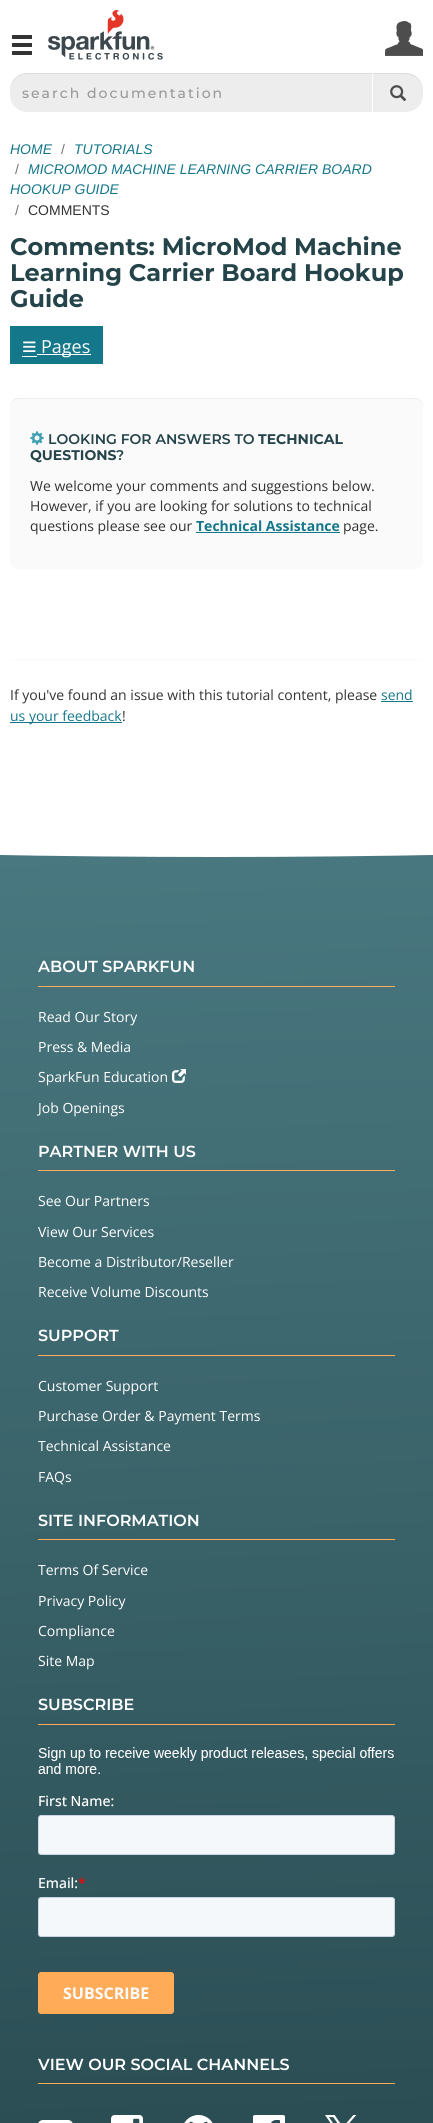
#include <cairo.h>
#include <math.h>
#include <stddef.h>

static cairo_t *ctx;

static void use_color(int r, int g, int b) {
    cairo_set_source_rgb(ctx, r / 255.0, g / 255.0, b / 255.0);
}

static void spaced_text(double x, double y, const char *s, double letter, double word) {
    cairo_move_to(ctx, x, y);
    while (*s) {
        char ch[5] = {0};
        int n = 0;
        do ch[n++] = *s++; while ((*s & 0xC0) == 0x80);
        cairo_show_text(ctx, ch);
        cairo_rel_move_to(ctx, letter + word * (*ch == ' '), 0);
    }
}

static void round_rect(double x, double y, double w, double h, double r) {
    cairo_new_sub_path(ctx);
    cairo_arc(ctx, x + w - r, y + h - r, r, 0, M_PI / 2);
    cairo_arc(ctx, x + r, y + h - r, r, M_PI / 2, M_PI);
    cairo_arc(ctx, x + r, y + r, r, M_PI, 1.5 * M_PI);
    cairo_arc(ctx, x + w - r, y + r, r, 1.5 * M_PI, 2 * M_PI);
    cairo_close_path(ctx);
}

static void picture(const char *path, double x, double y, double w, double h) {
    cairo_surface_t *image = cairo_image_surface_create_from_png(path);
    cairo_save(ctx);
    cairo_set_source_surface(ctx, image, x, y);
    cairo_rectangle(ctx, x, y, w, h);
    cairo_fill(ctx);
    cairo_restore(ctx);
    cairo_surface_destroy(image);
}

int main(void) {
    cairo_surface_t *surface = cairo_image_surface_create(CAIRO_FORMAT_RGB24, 433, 2123);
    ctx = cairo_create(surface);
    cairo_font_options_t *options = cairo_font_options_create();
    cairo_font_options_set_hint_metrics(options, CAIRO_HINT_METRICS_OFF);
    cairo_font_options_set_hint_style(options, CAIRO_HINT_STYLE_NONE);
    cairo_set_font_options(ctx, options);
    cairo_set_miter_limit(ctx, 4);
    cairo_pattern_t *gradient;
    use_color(255, 255, 255);
    cairo_paint(ctx);
    picture("img1.png", 12, 35, 20, 20);
    picture("img2.png", 48, 10, 115, 50);
    picture("img3.png", 385, 21, 38, 35);
    use_color(237, 237, 237);
    round_rect(10, 73, 413, 39, 17);
    cairo_fill(ctx);
    cairo_set_source_rgba(ctx, 0, 0, 0, 0.07);
    cairo_new_path(ctx);
    cairo_move_to(ctx, 27, 74);
    cairo_line_to(ctx, 406, 74);
    cairo_curve_to(ctx, 415, 74, 423, 82, 423, 91);
    cairo_line_to(ctx, 423, 90);
    cairo_curve_to(ctx, 423, 81, 415, 73, 406, 73);
    cairo_line_to(ctx, 27, 73);
    cairo_curve_to(ctx, 18, 73, 10, 81, 10, 90);
    cairo_line_to(ctx, 10, 91);
    cairo_curve_to(ctx, 10, 82, 18, 74, 27, 74);
    cairo_close_path(ctx);
    cairo_fill(ctx);
    cairo_select_font_face(ctx, "Montserrat Medium", CAIRO_FONT_SLANT_NORMAL, CAIRO_FONT_WEIGHT_NORMAL);
    cairo_set_font_size(ctx, 14);
    use_color(153, 153, 153);
    spaced_text(22, 98, "search documentation", 2, 0);
    use_color(255, 255, 255);
    cairo_rectangle(ctx, 372, 73, 1, 39);
    cairo_fill(ctx);
    picture("img4.png", 390, 85, 17, 16);
    cairo_select_font_face(ctx, "Liberation Sans", CAIRO_FONT_SLANT_ITALIC, CAIRO_FONT_WEIGHT_NORMAL);
    use_color(21, 119, 138);
    cairo_move_to(ctx, 10, 154);
    cairo_show_text(ctx, "HOME");
    cairo_select_font_face(ctx, "Liberation Sans", CAIRO_FONT_SLANT_NORMAL, CAIRO_FONT_WEIGHT_NORMAL);
    use_color(115, 115, 115);
    cairo_move_to(ctx, 61, 154);
    cairo_show_text(ctx, "/");
    cairo_select_font_face(ctx, "Liberation Sans", CAIRO_FONT_SLANT_ITALIC, CAIRO_FONT_WEIGHT_NORMAL);
    use_color(21, 119, 138);
    cairo_move_to(ctx, 74, 154);
    cairo_show_text(ctx, "TUTORIALS");
    cairo_select_font_face(ctx, "Liberation Sans", CAIRO_FONT_SLANT_NORMAL, CAIRO_FONT_WEIGHT_NORMAL);
    use_color(115, 115, 115);
    cairo_move_to(ctx, 15, 174);
    cairo_show_text(ctx, "/");
    cairo_select_font_face(ctx, "Liberation Sans", CAIRO_FONT_SLANT_ITALIC, CAIRO_FONT_WEIGHT_NORMAL);
    use_color(21, 119, 138);
    cairo_move_to(ctx, 28, 174);
    cairo_show_text(ctx, "MICROMOD MACHINE LEARNING CARRIER BOARD");
    cairo_move_to(ctx, 10, 194);
    cairo_show_text(ctx, "HOOKUP GUIDE");
    cairo_select_font_face(ctx, "Liberation Sans", CAIRO_FONT_SLANT_NORMAL, CAIRO_FONT_WEIGHT_NORMAL);
    use_color(115, 115, 115);
    cairo_move_to(ctx, 15, 215);
    cairo_show_text(ctx, "/");
    use_color(51, 51, 51);
    cairo_move_to(ctx, 28, 215);
    cairo_show_text(ctx, "COMMENTS");
    cairo_select_font_face(ctx, "Montserrat", CAIRO_FONT_SLANT_NORMAL, CAIRO_FONT_WEIGHT_BOLD);
    cairo_set_font_size(ctx, 24);
    use_color(36, 68, 74);
    cairo_move_to(ctx, 10, 255);
    cairo_show_text(ctx, "Comments: MicroMod Machine");
    cairo_move_to(ctx, 10, 281);
    cairo_show_text(ctx, "Learning Carrier Board Hookup");
    cairo_move_to(ctx, 10, 307);
    cairo_show_text(ctx, "Guide");
    use_color(21, 119, 138);
    cairo_rectangle(ctx, 10, 326, 93, 38);
    cairo_fill(ctx);
    cairo_select_font_face(ctx, "Liberation Sans", CAIRO_FONT_SLANT_NORMAL, CAIRO_FONT_WEIGHT_NORMAL);
    cairo_set_font_size(ctx, 25);
    use_color(255, 255, 255);
    cairo_move_to(ctx, 22, 355);
    cairo_show_text(ctx, "≡");
    cairo_rectangle(ctx, 22, 356, 15, 1);
    cairo_fill(ctx);
    cairo_rectangle(ctx, 37, 354, 54, 1);
    cairo_fill(ctx);
    cairo_select_font_face(ctx, "Open Sans", CAIRO_FONT_SLANT_NORMAL, CAIRO_FONT_WEIGHT_NORMAL);
    cairo_set_font_size(ctx, 18);
    cairo_move_to(ctx, 41, 353);
    cairo_show_text(ctx, "Pages");
    use_color(250, 250, 250);
    round_rect(10, 398, 413, 171, 8);
    cairo_fill(ctx);
    use_color(238, 238, 238);
    cairo_new_path(ctx);
    cairo_move_to(ctx, 18, 399);
    cairo_line_to(ctx, 415, 399);
    cairo_curve_to(ctx, 419, 399, 423, 403, 423, 407);
    cairo_line_to(ctx, 423, 406);
    cairo_curve_to(ctx, 423, 402, 419, 398, 415, 398);
    cairo_line_to(ctx, 18, 398);
    cairo_curve_to(ctx, 14, 398, 10, 402, 10, 406);
    cairo_line_to(ctx, 10, 407);
    cairo_curve_to(ctx, 10, 403, 14, 399, 18, 399);
    cairo_close_path(ctx);
    cairo_fill(ctx);
    picture("img5.png", 30, 431, 14, 14);
    cairo_select_font_face(ctx, "Montserrat SemiBold", CAIRO_FONT_SLANT_NORMAL, CAIRO_FONT_WEIGHT_NORMAL);
    cairo_set_font_size(ctx, 14);
    use_color(36, 68, 74);
    cairo_move_to(ctx, 48, 444);
    cairo_show_text(ctx, "LOOKING FOR ANSWERS TO");
    cairo_select_font_face(ctx, "Montserrat", CAIRO_FONT_SLANT_NORMAL, CAIRO_FONT_WEIGHT_BOLD);
    cairo_move_to(ctx, 258, 444);
    cairo_show_text(ctx, "TECHNICAL");
    cairo_move_to(ctx, 30, 460);
    cairo_show_text(ctx, "QUESTIONS");
    cairo_select_font_face(ctx, "Montserrat SemiBold", CAIRO_FONT_SLANT_NORMAL, CAIRO_FONT_WEIGHT_NORMAL);
    cairo_move_to(ctx, 116, 460);
    cairo_show_text(ctx, "?");
    cairo_select_font_face(ctx, "Open Sans", CAIRO_FONT_SLANT_NORMAL, CAIRO_FONT_WEIGHT_NORMAL);
    use_color(51, 51, 51);
    cairo_move_to(ctx, 30, 491);
    cairo_show_text(ctx, "We welcome your comments and suggestions below.");
    cairo_move_to(ctx, 30, 511);
    cairo_show_text(ctx, "However, if you are looking for solutions to technical");
    cairo_move_to(ctx, 30, 531);
    cairo_show_text(ctx, "questions please see our");
    cairo_select_font_face(ctx, "Open Sans", CAIRO_FONT_SLANT_NORMAL, CAIRO_FONT_WEIGHT_BOLD);
    use_color(21, 119, 138);
    cairo_move_to(ctx, 196, 531);
    cairo_show_text(ctx, "Technical Assistance");
    cairo_rectangle(ctx, 196, 532, 144, 1);
    cairo_fill(ctx);
    cairo_select_font_face(ctx, "Open Sans", CAIRO_FONT_SLANT_NORMAL, CAIRO_FONT_WEIGHT_NORMAL);
    use_color(51, 51, 51);
    cairo_move_to(ctx, 343, 531);
    cairo_show_text(ctx, "page.");
    use_color(250, 250, 250);
    cairo_rectangle(ctx, 10, 659, 413, 1);
    cairo_fill(ctx);
    use_color(51, 51, 51);
    cairo_move_to(ctx, 10, 700);
    cairo_show_text(ctx, "If you've found an issue with this tutorial content, please");
    use_color(21, 119, 138);
    cairo_move_to(ctx, 381, 700);
    cairo_show_text(ctx, "send");
    cairo_rectangle(ctx, 381, 701, 32, 1);
    cairo_fill(ctx);
    cairo_rectangle(ctx, 10, 722, 112, 1);
    cairo_fill(ctx);
    cairo_move_to(ctx, 10, 721);
    cairo_show_text(ctx, "us your feedback");
    use_color(51, 51, 51);
    cairo_move_to(ctx, 122, 721);
    cairo_show_text(ctx, "!");
    gradient = cairo_pattern_create_linear(194, 813, 239, 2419);
    cairo_pattern_add_color_stop_rgba(gradient, 0, 0.29, 0.475, 0.506, 1);
    cairo_pattern_add_color_stop_rgba(gradient, 1, 0.141, 0.267, 0.29, 1);
    cairo_set_source(ctx, gradient);
    cairo_pattern_destroy(gradient);
    cairo_rectangle(ctx, 0, 855, 433, 1268);
    cairo_fill(ctx);
    use_color(255, 255, 255);
    cairo_new_path(ctx);
    cairo_move_to(ctx, -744, 818);
    cairo_curve_to(ctx, -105, 870, 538, 870, 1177, 818);
    cairo_close_path(ctx);
    cairo_fill(ctx);
    use_color(255, 171, 88);
    cairo_rectangle(ctx, 38, 986, 357, 1);
    cairo_fill(ctx);
    cairo_select_font_face(ctx, "Montserrat SemiBold", CAIRO_FONT_SLANT_NORMAL, CAIRO_FONT_WEIGHT_NORMAL);
    cairo_set_font_size(ctx, 16);
    use_color(255, 255, 255);
    cairo_move_to(ctx, 38, 972);
    cairo_show_text(ctx, "ABOUT SPARKFUN");
    cairo_select_font_face(ctx, "Open Sans", CAIRO_FONT_SLANT_NORMAL, CAIRO_FONT_WEIGHT_NORMAL);
    cairo_set_font_size(ctx, 14);
    cairo_move_to(ctx, 38, 1022);
    cairo_show_text(ctx, "Read Our Story");
    cairo_move_to(ctx, 38, 1052);
    cairo_show_text(ctx, "Press & Media");
    cairo_move_to(ctx, 38, 1082);
    cairo_show_text(ctx, "SparkFun Education");
    picture("img6.png", 172, 1069, 14, 14);
    cairo_move_to(ctx, 38, 1113);
    cairo_show_text(ctx, "Job Openings");
    use_color(255, 171, 88);
    cairo_rectangle(ctx, 38, 1170, 357, 1);
    cairo_fill(ctx);
    cairo_select_font_face(ctx, "Montserrat SemiBold", CAIRO_FONT_SLANT_NORMAL, CAIRO_FONT_WEIGHT_NORMAL);
    cairo_set_font_size(ctx, 16);
    use_color(255, 255, 255);
    cairo_move_to(ctx, 38, 1157);
    cairo_show_text(ctx, "PARTNER WITH US");
    cairo_select_font_face(ctx, "Open Sans", CAIRO_FONT_SLANT_NORMAL, CAIRO_FONT_WEIGHT_NORMAL);
    cairo_set_font_size(ctx, 14);
    cairo_move_to(ctx, 38, 1206);
    cairo_show_text(ctx, "See Our Partners");
    cairo_move_to(ctx, 38, 1237);
    cairo_show_text(ctx, "View Our Services");
    cairo_move_to(ctx, 38, 1267);
    cairo_show_text(ctx, "Become a Distributor/Reseller");
    cairo_move_to(ctx, 38, 1297);
    cairo_show_text(ctx, "Receive Volume Discounts");
    use_color(255, 171, 88);
    cairo_rectangle(ctx, 38, 1355, 357, 1);
    cairo_fill(ctx);
    cairo_select_font_face(ctx, "Montserrat SemiBold", CAIRO_FONT_SLANT_NORMAL, CAIRO_FONT_WEIGHT_NORMAL);
    cairo_set_font_size(ctx, 16);
    use_color(255, 255, 255);
    cairo_move_to(ctx, 38, 1341);
    cairo_show_text(ctx, "SUPPORT");
    cairo_select_font_face(ctx, "Open Sans", CAIRO_FONT_SLANT_NORMAL, CAIRO_FONT_WEIGHT_NORMAL);
    cairo_set_font_size(ctx, 14);
    cairo_move_to(ctx, 38, 1391);
    cairo_show_text(ctx, "Customer Support");
    cairo_move_to(ctx, 38, 1421);
    cairo_show_text(ctx, "Purchase Order & Payment Terms");
    cairo_move_to(ctx, 38, 1451);
    cairo_show_text(ctx, "Technical Assistance");
    cairo_move_to(ctx, 38, 1482);
    cairo_show_text(ctx, "FAQs");
    use_color(255, 171, 88);
    cairo_rectangle(ctx, 38, 1539, 357, 1);
    cairo_fill(ctx);
    cairo_select_font_face(ctx, "Montserrat SemiBold", CAIRO_FONT_SLANT_NORMAL, CAIRO_FONT_WEIGHT_NORMAL);
    cairo_set_font_size(ctx, 16);
    use_color(255, 255, 255);
    cairo_move_to(ctx, 38, 1526);
    cairo_show_text(ctx, "SITE INFORMATION");
    cairo_select_font_face(ctx, "Open Sans", CAIRO_FONT_SLANT_NORMAL, CAIRO_FONT_WEIGHT_NORMAL);
    cairo_set_font_size(ctx, 14);
    cairo_move_to(ctx, 38, 1575);
    cairo_show_text(ctx, "Terms Of Service");
    cairo_move_to(ctx, 38, 1606);
    cairo_show_text(ctx, "Privacy Policy");
    cairo_move_to(ctx, 38, 1636);
    cairo_show_text(ctx, "Compliance");
    cairo_move_to(ctx, 38, 1666);
    cairo_show_text(ctx, "Site Map");
    use_color(255, 171, 88);
    cairo_rectangle(ctx, 38, 1724, 357, 1);
    cairo_fill(ctx);
    cairo_select_font_face(ctx, "Montserrat SemiBold", CAIRO_FONT_SLANT_NORMAL, CAIRO_FONT_WEIGHT_NORMAL);
    cairo_set_font_size(ctx, 16);
    use_color(255, 255, 255);
    cairo_move_to(ctx, 38, 1710);
    cairo_show_text(ctx, "SUBSCRIBE");
    picture("img7.png", 38, 1747, 357, 267);
    use_color(255, 171, 88);
    cairo_rectangle(ctx, 38, 2083, 357, 1);
    cairo_fill(ctx);
    use_color(255, 255, 255);
    cairo_move_to(ctx, 38, 2070);
    cairo_show_text(ctx, "VIEW OUR SOCIAL CHANNELS");
    picture("img8.png", 38, 2120, 35, 3);
    picture("img9.png", 111, 2115, 32, 8);
    picture("img10.png", 184, 2115, 29, 8);
    picture("img11.png", 253, 2115, 32, 8);
    picture("img12.png", 325, 2115, 32, 8);
    cairo_surface_write_to_png(surface, "result.png");
    cairo_font_options_destroy(options);
    cairo_destroy(ctx);
    cairo_surface_destroy(surface);
    return 0;
}
